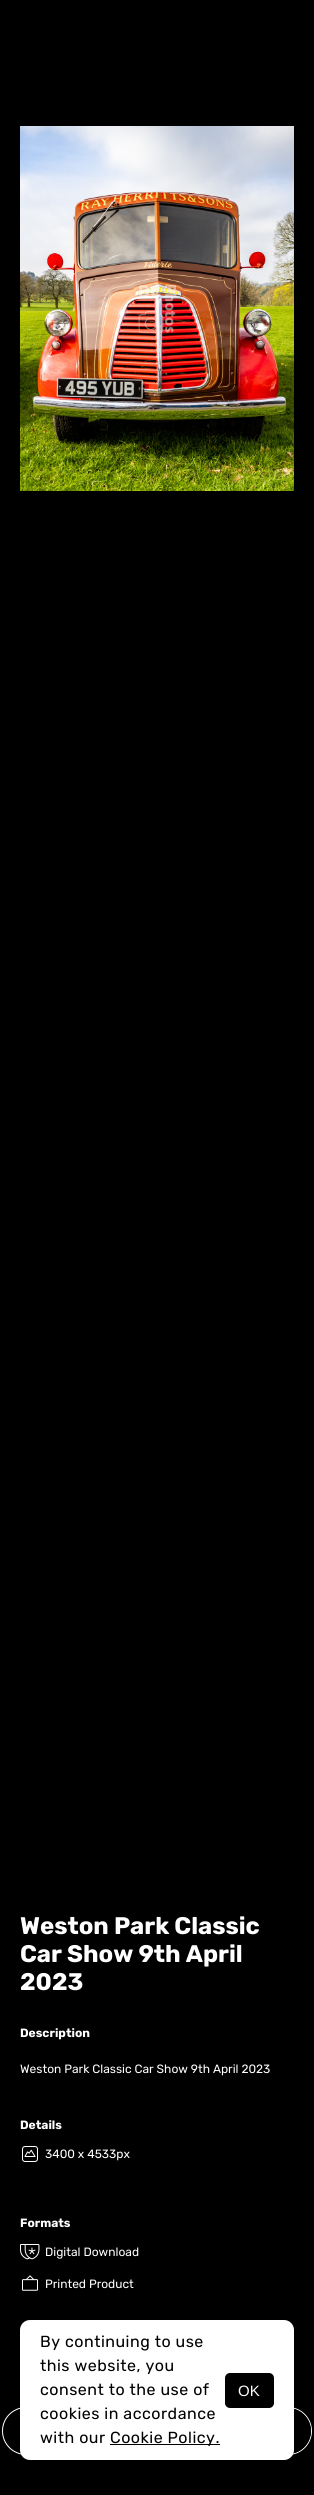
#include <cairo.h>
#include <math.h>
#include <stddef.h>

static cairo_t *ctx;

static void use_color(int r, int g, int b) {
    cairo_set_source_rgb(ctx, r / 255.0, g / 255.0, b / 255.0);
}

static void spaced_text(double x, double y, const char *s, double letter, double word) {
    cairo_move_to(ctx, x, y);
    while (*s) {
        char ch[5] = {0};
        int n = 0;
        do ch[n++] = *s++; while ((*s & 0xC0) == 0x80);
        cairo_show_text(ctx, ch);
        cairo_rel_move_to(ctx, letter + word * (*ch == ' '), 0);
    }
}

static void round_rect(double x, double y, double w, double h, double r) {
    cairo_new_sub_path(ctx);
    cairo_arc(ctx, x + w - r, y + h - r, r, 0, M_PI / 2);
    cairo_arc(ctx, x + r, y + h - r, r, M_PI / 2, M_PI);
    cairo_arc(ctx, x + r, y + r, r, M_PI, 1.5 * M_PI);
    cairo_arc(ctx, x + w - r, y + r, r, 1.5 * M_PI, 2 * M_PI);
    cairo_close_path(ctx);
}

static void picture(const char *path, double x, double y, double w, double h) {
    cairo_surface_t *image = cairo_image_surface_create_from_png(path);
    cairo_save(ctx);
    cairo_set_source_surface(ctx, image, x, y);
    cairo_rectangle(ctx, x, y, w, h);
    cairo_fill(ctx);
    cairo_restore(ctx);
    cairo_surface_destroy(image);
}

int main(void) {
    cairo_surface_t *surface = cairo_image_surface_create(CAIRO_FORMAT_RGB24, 314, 2495);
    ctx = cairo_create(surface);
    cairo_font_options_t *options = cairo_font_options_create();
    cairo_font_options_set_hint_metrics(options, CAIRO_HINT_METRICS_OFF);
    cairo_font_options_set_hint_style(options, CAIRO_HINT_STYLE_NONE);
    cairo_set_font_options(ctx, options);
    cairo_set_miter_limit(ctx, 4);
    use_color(0, 0, 0);
    cairo_paint(ctx);
    picture("img1.png", 20, 126, 274, 365);
    cairo_select_font_face(ctx, "Rubik", CAIRO_FONT_SLANT_NORMAL, CAIRO_FONT_WEIGHT_BOLD);
    cairo_set_font_size(ctx, 24);
    use_color(255, 255, 255);
    cairo_move_to(ctx, 20, 1934);
    cairo_show_text(ctx, "Weston Park Classic");
    cairo_move_to(ctx, 20, 1962);
    cairo_show_text(ctx, "Car Show 9th April");
    cairo_move_to(ctx, 20, 1990);
    cairo_show_text(ctx, "2023");
    cairo_set_font_size(ctx, 12);
    cairo_move_to(ctx, 20, 2037);
    cairo_show_text(ctx, "Description");
    cairo_select_font_face(ctx, "Rubik", CAIRO_FONT_SLANT_NORMAL, CAIRO_FONT_WEIGHT_NORMAL);
    cairo_move_to(ctx, 20, 2073);
    cairo_show_text(ctx, "Weston Park Classic Car Show 9th April 2023");
    cairo_select_font_face(ctx, "Rubik", CAIRO_FONT_SLANT_NORMAL, CAIRO_FONT_WEIGHT_BOLD);
    cairo_move_to(ctx, 20, 2129);
    cairo_show_text(ctx, "Details");
    picture("img2.png", 22, 2146, 16, 16);
    cairo_select_font_face(ctx, "Rubik", CAIRO_FONT_SLANT_NORMAL, CAIRO_FONT_WEIGHT_NORMAL);
    cairo_move_to(ctx, 45, 2158);
    cairo_show_text(ctx, "3400 x 4533px");
    cairo_select_font_face(ctx, "Rubik", CAIRO_FONT_SLANT_NORMAL, CAIRO_FONT_WEIGHT_BOLD);
    cairo_move_to(ctx, 20, 2227);
    cairo_show_text(ctx, "Formats");
    picture("img3.png", 20, 2244, 20, 16);
    cairo_select_font_face(ctx, "Rubik", CAIRO_FONT_SLANT_NORMAL, CAIRO_FONT_WEIGHT_NORMAL);
    cairo_move_to(ctx, 45, 2256);
    cairo_show_text(ctx, "Digital Download");
    picture("img4.png", 22, 2275, 16, 16);
    cairo_move_to(ctx, 45, 2288);
    cairo_show_text(ctx, "Printed Product");
    round_rect(2.5, 2407.5, 309, 47, 23.5);
    cairo_set_line_width(ctx, 1);
    cairo_stroke(ctx);
    use_color(0, 0, 0);
    cairo_new_path(ctx);
    cairo_move_to(ctx, 202, 2408);
    cairo_line_to(ctx, 288, 2408);
    cairo_curve_to(ctx, 300.5, 2408, 311, 2418.5, 311, 2431);
    cairo_curve_to(ctx, 311, 2443.5, 300.5, 2454, 288, 2454);
    cairo_line_to(ctx, 202, 2454);
    cairo_close_path(ctx);
    cairo_fill(ctx);
    use_color(255, 255, 255);
    round_rect(20, 2320, 274, 140, 10);
    cairo_fill(ctx);
    cairo_set_font_size(ctx, 16);
    use_color(0, 0, 0);
    spaced_text(40, 2347, "By continuing to use", 0.5, 0);
    spaced_text(40, 2371, "this website, you", 0.5, 0);
    spaced_text(40, 2395, "consent to the use of", 0.5, 0);
    spaced_text(40, 2419, "cookies in accordance", 0.5, 0);
    spaced_text(40, 2443, "with our", 0.5, 0);
    cairo_rectangle(ctx, 110, 2444, 110, 1);
    cairo_fill(ctx);
    spaced_text(110, 2443, "Cookie Policy.", 0.5, 0);
    round_rect(225, 2373, 49, 35, 5);
    cairo_fill(ctx);
    cairo_select_font_face(ctx, "Liberation Sans", CAIRO_FONT_SLANT_NORMAL, CAIRO_FONT_WEIGHT_NORMAL);
    cairo_set_font_size(ctx, 15);
    use_color(255, 255, 255);
    cairo_move_to(ctx, 238, 2396);
    cairo_show_text(ctx, "OK");
    cairo_surface_write_to_png(surface, "result.png");
    cairo_font_options_destroy(options);
    cairo_destroy(ctx);
    cairo_surface_destroy(surface);
    return 0;
}
